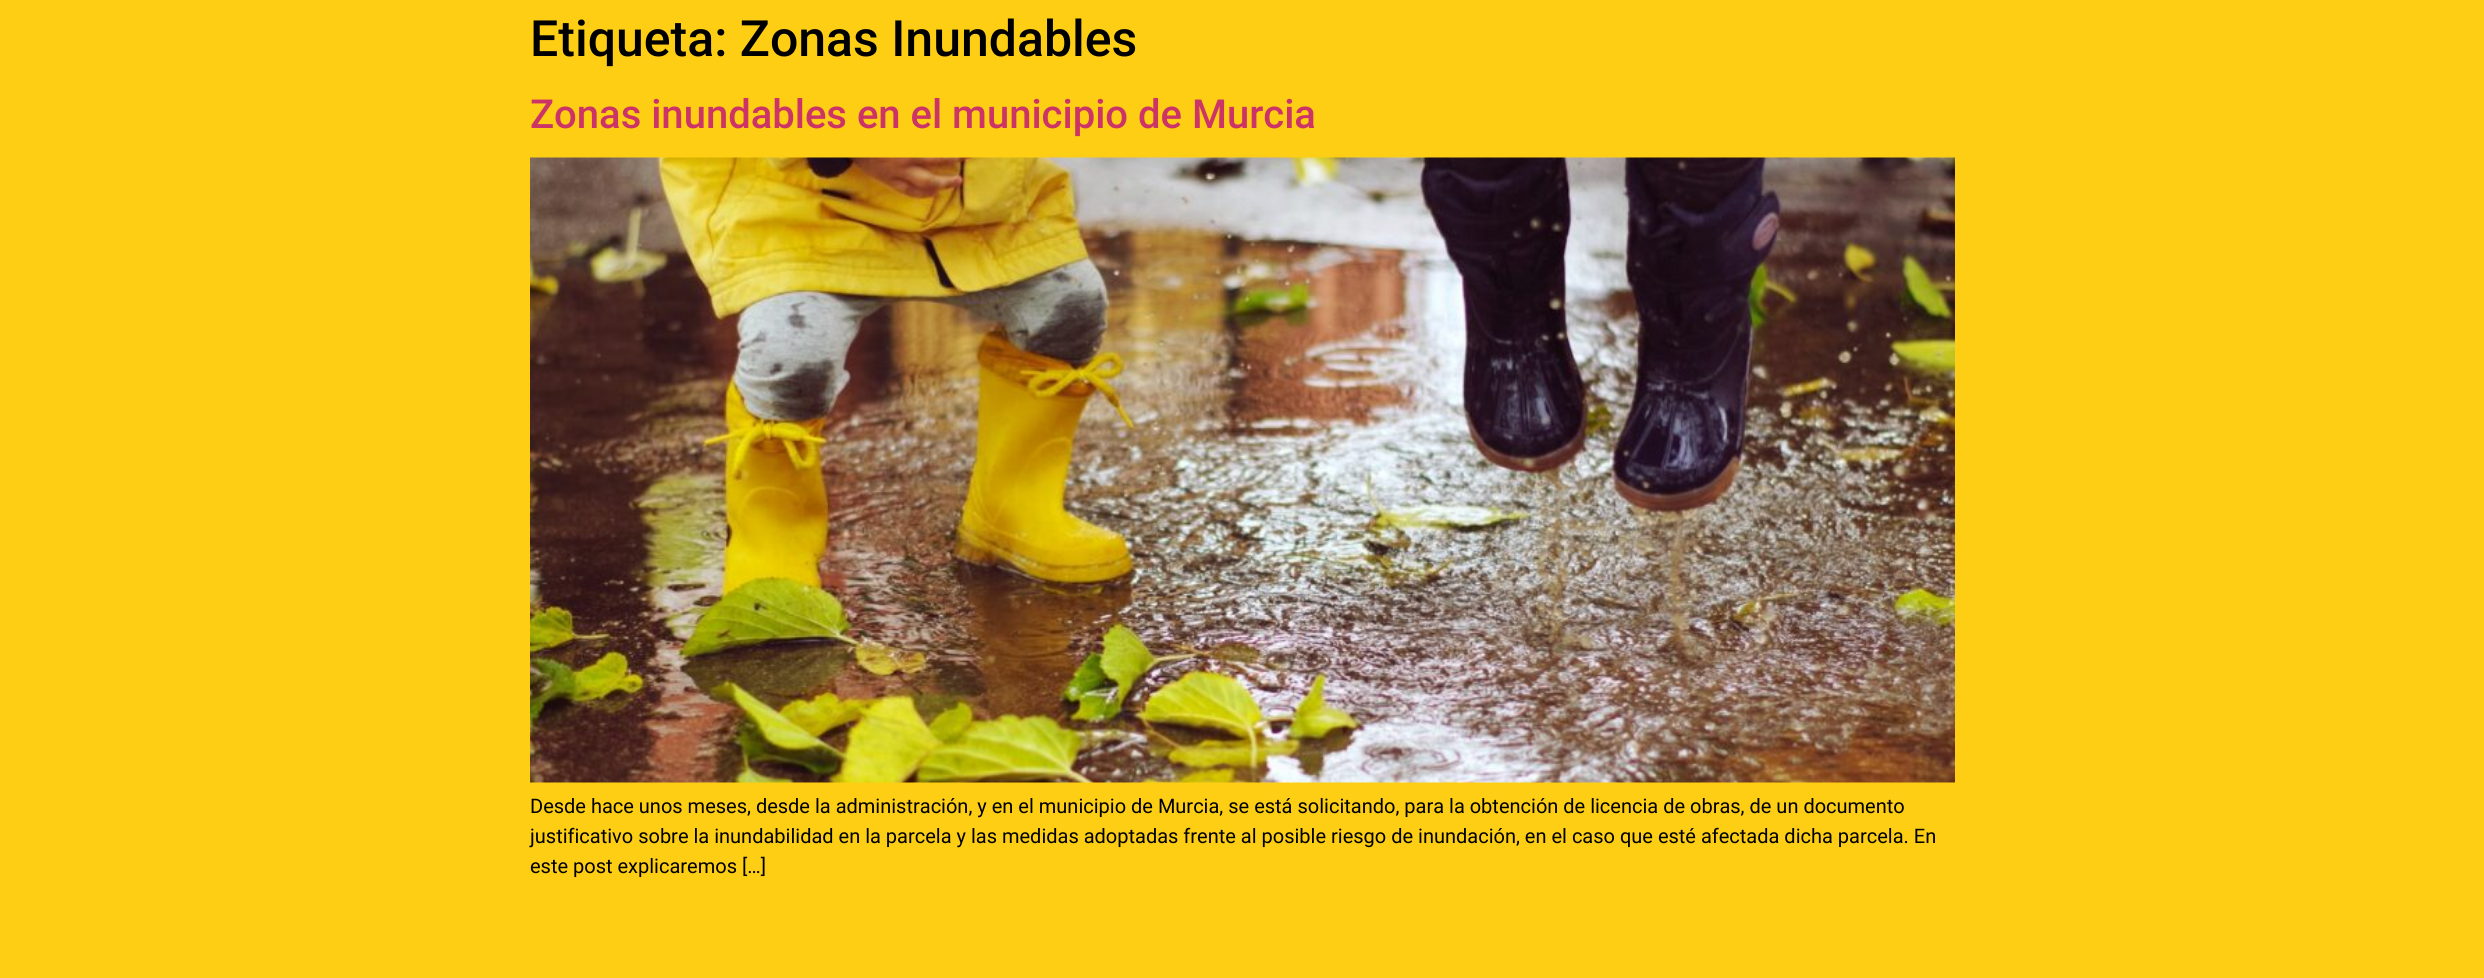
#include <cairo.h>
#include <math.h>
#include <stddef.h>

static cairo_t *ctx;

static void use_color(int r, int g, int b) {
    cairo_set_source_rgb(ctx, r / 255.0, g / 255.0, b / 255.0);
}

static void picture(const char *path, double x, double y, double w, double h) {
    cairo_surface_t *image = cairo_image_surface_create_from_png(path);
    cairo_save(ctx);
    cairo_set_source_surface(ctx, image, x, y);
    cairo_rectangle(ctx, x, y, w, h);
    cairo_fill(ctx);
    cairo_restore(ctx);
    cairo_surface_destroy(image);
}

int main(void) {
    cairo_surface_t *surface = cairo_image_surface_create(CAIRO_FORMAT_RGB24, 2484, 978);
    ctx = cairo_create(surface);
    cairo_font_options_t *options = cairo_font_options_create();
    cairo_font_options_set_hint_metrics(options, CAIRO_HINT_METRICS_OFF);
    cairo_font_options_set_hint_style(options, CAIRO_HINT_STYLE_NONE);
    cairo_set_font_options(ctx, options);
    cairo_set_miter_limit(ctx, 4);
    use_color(254, 206, 20);
    cairo_paint(ctx);
    cairo_select_font_face(ctx, "Roboto Medium", CAIRO_FONT_SLANT_NORMAL, CAIRO_FONT_WEIGHT_NORMAL);
    cairo_set_font_size(ctx, 50);
    use_color(0, 0, 0);
    cairo_move_to(ctx, 530, 56);
    cairo_show_text(ctx, "Etiqueta: Zonas Inundables");
    cairo_set_font_size(ctx, 40);
    use_color(204, 51, 102);
    cairo_move_to(ctx, 530, 128);
    cairo_show_text(ctx, "Zonas inundables en el municipio de Murcia");
    picture("img1.png", 530, 157, 1425, 626);
    cairo_select_font_face(ctx, "Roboto", CAIRO_FONT_SLANT_NORMAL, CAIRO_FONT_WEIGHT_NORMAL);
    cairo_set_font_size(ctx, 20);
    use_color(0, 0, 0);
    cairo_move_to(ctx, 530, 813);
    cairo_show_text(ctx, "Desde hace unos meses, desde la administración, y en el municipio de Murcia, se está solicitando, para la obtención de licencia de obras, de un documento");
    cairo_move_to(ctx, 530, 843);
    cairo_show_text(ctx, "justificativo sobre la inundabilidad en la parcela y las medidas adoptadas frente al posible riesgo de inundación, en el caso que esté afectada dicha parcela. En");
    cairo_move_to(ctx, 530, 873);
    cairo_show_text(ctx, "este post explicaremos […]");
    cairo_surface_write_to_png(surface, "result.png");
    cairo_font_options_destroy(options);
    cairo_destroy(ctx);
    cairo_surface_destroy(surface);
    return 0;
}
